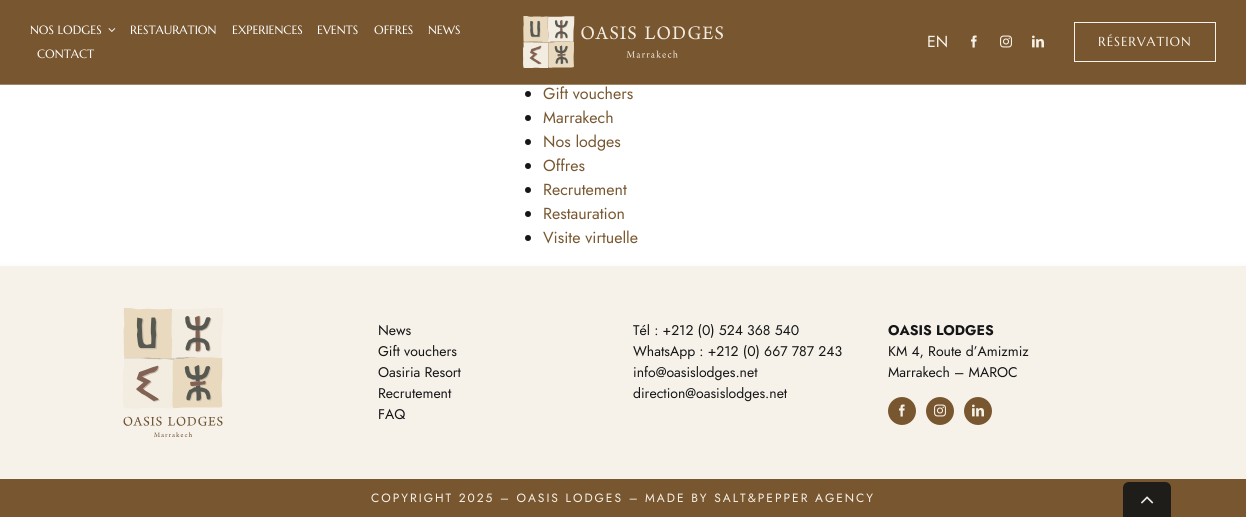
#include <cairo.h>
#include <math.h>
#include <stddef.h>

static cairo_t *ctx;

static void use_color(int r, int g, int b) {
    cairo_set_source_rgb(ctx, r / 255.0, g / 255.0, b / 255.0);
}

static void spaced_text(double x, double y, const char *s, double letter, double word) {
    cairo_move_to(ctx, x, y);
    while (*s) {
        char ch[5] = {0};
        int n = 0;
        do ch[n++] = *s++; while ((*s & 0xC0) == 0x80);
        cairo_show_text(ctx, ch);
        cairo_rel_move_to(ctx, letter + word * (*ch == ' '), 0);
    }
}

static void round_rect(double x, double y, double w, double h, double r) {
    cairo_new_sub_path(ctx);
    cairo_arc(ctx, x + w - r, y + h - r, r, 0, M_PI / 2);
    cairo_arc(ctx, x + r, y + h - r, r, M_PI / 2, M_PI);
    cairo_arc(ctx, x + r, y + r, r, M_PI, 1.5 * M_PI);
    cairo_arc(ctx, x + w - r, y + r, r, 1.5 * M_PI, 2 * M_PI);
    cairo_close_path(ctx);
}

static void shadow(double x, double y, double w, double h, double r, double blur, double alpha) {
    cairo_push_group_with_content(ctx, CAIRO_CONTENT_ALPHA);
    cairo_set_operator(ctx, CAIRO_OPERATOR_SOURCE);
    for (int i = 15; i >= -15 && fmin(w, h) + blur * i / 3 > 0; i -= 2) {
        double e = blur * i / 6;
        cairo_set_source_rgba(ctx, 0, 0, 0, alpha * erfc((i - 1) / 8.5) / 2);
        round_rect(x - e, y - e, w + 2 * e, h + 2 * e, fmax(0, fmin(r + e + blur * .6, fmin(w, h) / 2 + e)));
        cairo_fill(ctx);
    }
    cairo_pattern_t *soft = cairo_pop_group(ctx);
    cairo_mask(ctx, soft);
    cairo_pattern_destroy(soft);
}

static void picture(const char *path, double x, double y, double w, double h) {
    cairo_surface_t *image = cairo_image_surface_create_from_png(path);
    cairo_save(ctx);
    cairo_set_source_surface(ctx, image, x, y);
    cairo_rectangle(ctx, x, y, w, h);
    cairo_fill(ctx);
    cairo_restore(ctx);
    cairo_surface_destroy(image);
}

int main(void) {
    cairo_surface_t *surface = cairo_image_surface_create(CAIRO_FORMAT_RGB24, 1246, 517);
    ctx = cairo_create(surface);
    cairo_font_options_t *options = cairo_font_options_create();
    cairo_font_options_set_hint_metrics(options, CAIRO_HINT_METRICS_OFF);
    cairo_font_options_set_hint_style(options, CAIRO_HINT_STYLE_NONE);
    cairo_set_font_options(ctx, options);
    cairo_set_miter_limit(ctx, 4);
    use_color(255, 255, 255);
    cairo_paint(ctx);
    use_color(120, 87, 48);
    cairo_rectangle(ctx, 0, 0, 1246, 84);
    cairo_fill(ctx);
    use_color(158, 134, 104);
    cairo_rectangle(ctx, 0, 84, 1246, 1);
    cairo_fill(ctx);
    cairo_select_font_face(ctx, "Marcellus", CAIRO_FONT_SLANT_NORMAL, CAIRO_FONT_WEIGHT_NORMAL);
    cairo_set_font_size(ctx, 12);
    use_color(255, 255, 255);
    cairo_move_to(ctx, 30, 34);
    cairo_show_text(ctx, "NOS LODGES");
    picture("img1.png", 108, 28, 8, 4);
    cairo_move_to(ctx, 130, 34);
    cairo_show_text(ctx, "RESTAURATION");
    cairo_move_to(ctx, 232, 34);
    cairo_show_text(ctx, "EXPERIENCES");
    cairo_move_to(ctx, 317, 34);
    cairo_show_text(ctx, "EVENTS");
    cairo_move_to(ctx, 374, 34);
    cairo_show_text(ctx, "OFFRES");
    cairo_move_to(ctx, 428, 34);
    cairo_show_text(ctx, "NEWS");
    cairo_move_to(ctx, 37, 58);
    cairo_show_text(ctx, "CONTACT");
    picture("img2.png", 523, 16, 200, 52);
    cairo_select_font_face(ctx, "Jost", CAIRO_FONT_SLANT_NORMAL, CAIRO_FONT_WEIGHT_NORMAL);
    cairo_set_font_size(ctx, 16);
    use_color(247, 242, 233);
    cairo_move_to(ctx, 927, 47);
    cairo_show_text(ctx, "EN");
    picture("img3.png", 971, 35, 6, 13);
    picture("img4.png", 1000, 35, 12, 13);
    picture("img5.png", 1032, 35, 12, 13);
    cairo_rectangle(ctx, 1074.5, 22.5, 141, 39);
    cairo_set_line_width(ctx, 1);
    cairo_stroke(ctx);
    cairo_select_font_face(ctx, "Marcellus", CAIRO_FONT_SLANT_NORMAL, CAIRO_FONT_WEIGHT_NORMAL);
    cairo_set_font_size(ctx, 13);
    spaced_text(1098, 46, "RÉSERVATION", 1, 0);
    use_color(20, 22, 23);
    cairo_new_path(ctx);
    cairo_arc(ctx, 528, 94, 3, 0, 2 * M_PI);
    cairo_fill(ctx);
    cairo_select_font_face(ctx, "Jost", CAIRO_FONT_SLANT_NORMAL, CAIRO_FONT_WEIGHT_NORMAL);
    cairo_set_font_size(ctx, 16);
    use_color(120, 87, 48);
    cairo_move_to(ctx, 543, 99);
    cairo_show_text(ctx, "Gift vouchers");
    use_color(20, 22, 23);
    cairo_new_path(ctx);
    cairo_arc(ctx, 528, 118, 3, 0, 2 * M_PI);
    cairo_fill(ctx);
    use_color(120, 87, 48);
    cairo_move_to(ctx, 543, 123);
    cairo_show_text(ctx, "Marrakech");
    use_color(20, 22, 23);
    cairo_new_path(ctx);
    cairo_arc(ctx, 528, 142, 3, 0, 2 * M_PI);
    cairo_fill(ctx);
    use_color(120, 87, 48);
    cairo_move_to(ctx, 543, 147);
    cairo_show_text(ctx, "Nos lodges");
    use_color(20, 22, 23);
    cairo_new_path(ctx);
    cairo_arc(ctx, 528, 166, 3, 0, 2 * M_PI);
    cairo_fill(ctx);
    use_color(120, 87, 48);
    cairo_move_to(ctx, 543, 171);
    cairo_show_text(ctx, "Offres");
    use_color(20, 22, 23);
    cairo_new_path(ctx);
    cairo_arc(ctx, 528, 190, 3, 0, 2 * M_PI);
    cairo_fill(ctx);
    use_color(120, 87, 48);
    cairo_move_to(ctx, 543, 195);
    cairo_show_text(ctx, "Recrutement");
    use_color(20, 22, 23);
    cairo_new_path(ctx);
    cairo_arc(ctx, 528, 214, 3, 0, 2 * M_PI);
    cairo_fill(ctx);
    use_color(120, 87, 48);
    cairo_move_to(ctx, 543, 219);
    cairo_show_text(ctx, "Restauration");
    use_color(20, 22, 23);
    cairo_new_path(ctx);
    cairo_arc(ctx, 528, 238, 3, 0, 2 * M_PI);
    cairo_fill(ctx);
    use_color(120, 87, 48);
    cairo_move_to(ctx, 543, 243);
    cairo_show_text(ctx, "Visite virtuelle");
    use_color(242, 243, 245);
    shadow(0, 267, 1246, 213, 0, 2.5, 1);
    use_color(247, 242, 233);
    cairo_rectangle(ctx, 0, 266, 1246, 213);
    cairo_fill(ctx);
    picture("img6.png", 123, 308, 100, 129);
    cairo_set_font_size(ctx, 14);
    use_color(20, 22, 23);
    cairo_move_to(ctx, 378, 335);
    cairo_show_text(ctx, "News");
    cairo_move_to(ctx, 378, 356);
    cairo_show_text(ctx, "Gift vouchers");
    cairo_move_to(ctx, 378, 377);
    cairo_show_text(ctx, "Oasiria Resort");
    cairo_move_to(ctx, 378, 398);
    cairo_show_text(ctx, "Recrutement");
    cairo_move_to(ctx, 378, 419);
    cairo_show_text(ctx, "FAQ");
    cairo_move_to(ctx, 633, 335);
    cairo_show_text(ctx, "Tél : +212 (0) 524 368 540");
    cairo_move_to(ctx, 633, 356);
    cairo_show_text(ctx, "WhatsApp : +212 (0) 667 787 243");
    cairo_move_to(ctx, 633, 377);
    cairo_show_text(ctx, "info@oasislodges.net");
    cairo_move_to(ctx, 633, 398);
    cairo_show_text(ctx, "direction@oasislodges.net");
    cairo_select_font_face(ctx, "Jost", CAIRO_FONT_SLANT_NORMAL, CAIRO_FONT_WEIGHT_BOLD);
    cairo_move_to(ctx, 888, 335);
    cairo_show_text(ctx, "OASIS LODGES");
    cairo_select_font_face(ctx, "Jost", CAIRO_FONT_SLANT_NORMAL, CAIRO_FONT_WEIGHT_NORMAL);
    cairo_move_to(ctx, 888, 356);
    cairo_show_text(ctx, "KM 4, Route d’Amizmiz");
    cairo_move_to(ctx, 888, 377);
    cairo_show_text(ctx, "Marrakech – MAROC");
    use_color(120, 87, 48);
    cairo_new_path(ctx);
    cairo_arc(ctx, 902, 411, 14, 0, 2 * M_PI);
    cairo_fill(ctx);
    picture("img3.png", 899, 404, 6, 13);
    cairo_arc(ctx, 940, 411, 14, 0, 2 * M_PI);
    cairo_fill(ctx);
    picture("img4.png", 934, 404, 12, 13);
    cairo_arc(ctx, 978, 411, 14, 0, 2 * M_PI);
    cairo_fill(ctx);
    picture("img5.png", 972, 404, 12, 13);
    cairo_rectangle(ctx, 0, 479, 1246, 38);
    cairo_fill(ctx);
    cairo_set_font_size(ctx, 12);
    use_color(247, 242, 233);
    spaced_text(371, 502, "COPYRIGHT 2025 – OASIS LODGES – MADE BY SALT&PEPPER AGENCY", 2, 0);
    use_color(30, 29, 26);
    cairo_new_path(ctx);
    cairo_move_to(ctx, 1129, 482);
    cairo_line_to(ctx, 1165, 482);
    cairo_curve_to(ctx, 1168.5, 482, 1171, 484.5, 1171, 488);
    cairo_line_to(ctx, 1171, 517);
    cairo_line_to(ctx, 1123, 517);
    cairo_line_to(ctx, 1123, 488);
    cairo_curve_to(ctx, 1123, 484.5, 1125.5, 482, 1129, 482);
    cairo_close_path(ctx);
    cairo_fill(ctx);
    picture("img7.png", 1141, 496, 13, 8);
    cairo_surface_write_to_png(surface, "result.png");
    cairo_font_options_destroy(options);
    cairo_destroy(ctx);
    cairo_surface_destroy(surface);
    return 0;
}
